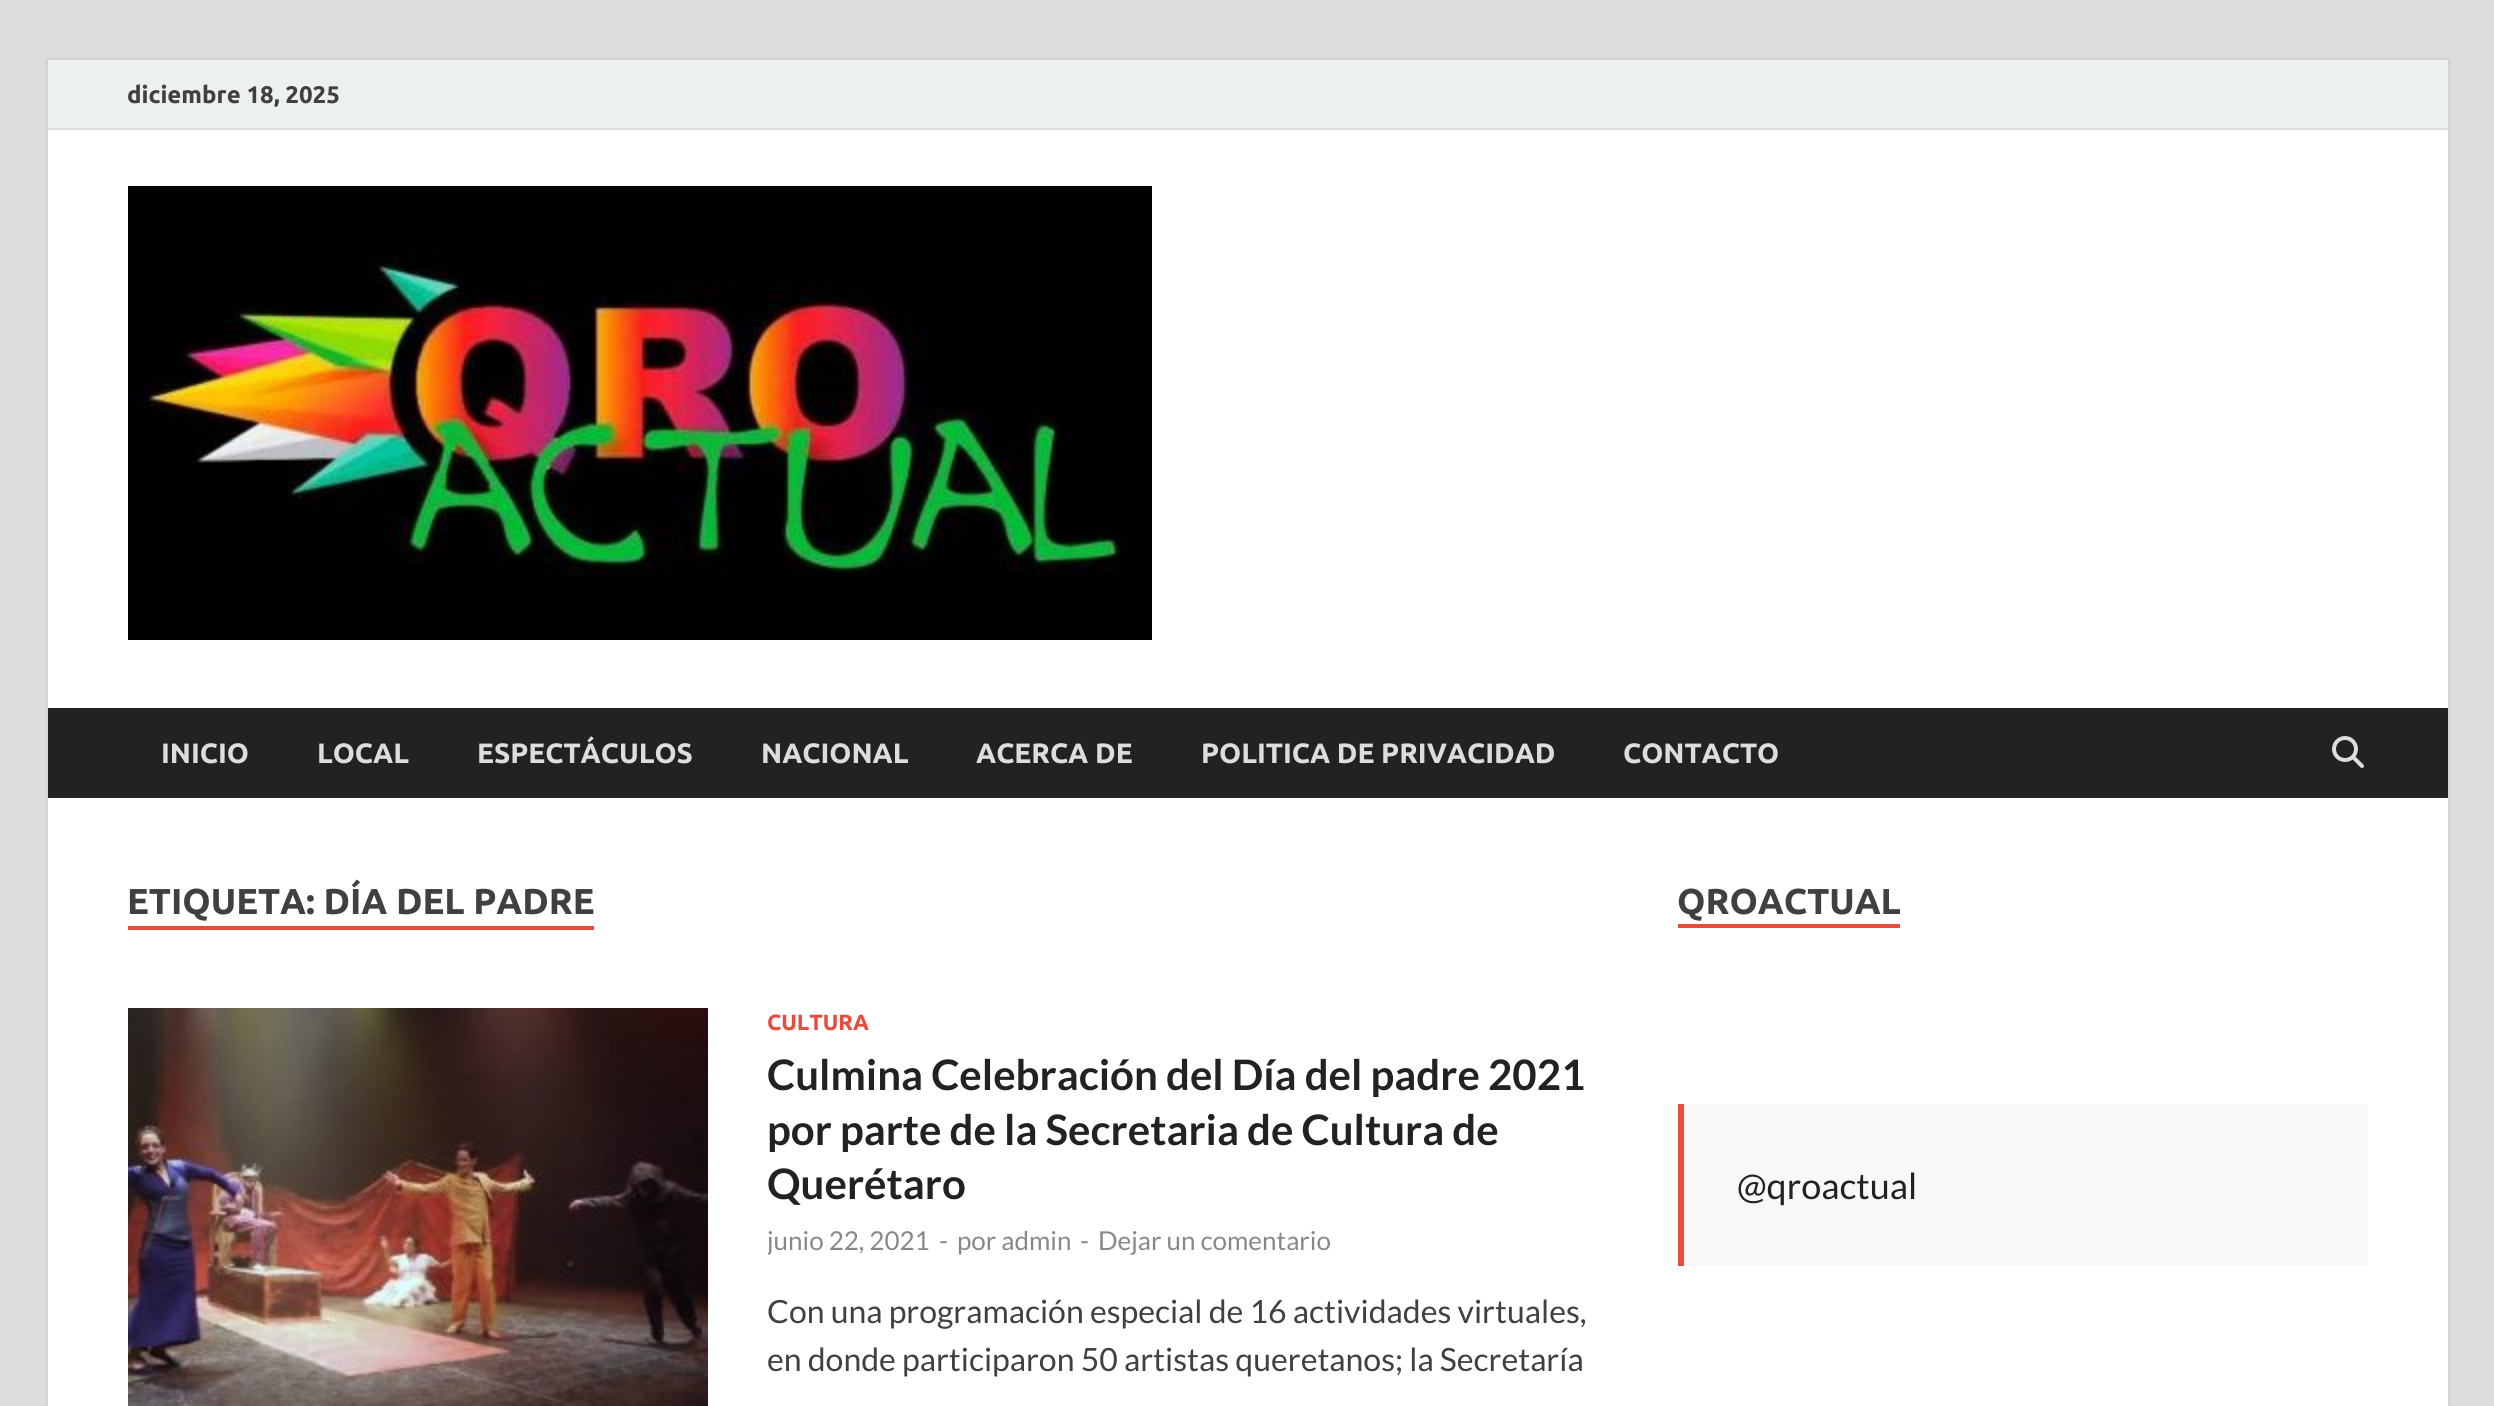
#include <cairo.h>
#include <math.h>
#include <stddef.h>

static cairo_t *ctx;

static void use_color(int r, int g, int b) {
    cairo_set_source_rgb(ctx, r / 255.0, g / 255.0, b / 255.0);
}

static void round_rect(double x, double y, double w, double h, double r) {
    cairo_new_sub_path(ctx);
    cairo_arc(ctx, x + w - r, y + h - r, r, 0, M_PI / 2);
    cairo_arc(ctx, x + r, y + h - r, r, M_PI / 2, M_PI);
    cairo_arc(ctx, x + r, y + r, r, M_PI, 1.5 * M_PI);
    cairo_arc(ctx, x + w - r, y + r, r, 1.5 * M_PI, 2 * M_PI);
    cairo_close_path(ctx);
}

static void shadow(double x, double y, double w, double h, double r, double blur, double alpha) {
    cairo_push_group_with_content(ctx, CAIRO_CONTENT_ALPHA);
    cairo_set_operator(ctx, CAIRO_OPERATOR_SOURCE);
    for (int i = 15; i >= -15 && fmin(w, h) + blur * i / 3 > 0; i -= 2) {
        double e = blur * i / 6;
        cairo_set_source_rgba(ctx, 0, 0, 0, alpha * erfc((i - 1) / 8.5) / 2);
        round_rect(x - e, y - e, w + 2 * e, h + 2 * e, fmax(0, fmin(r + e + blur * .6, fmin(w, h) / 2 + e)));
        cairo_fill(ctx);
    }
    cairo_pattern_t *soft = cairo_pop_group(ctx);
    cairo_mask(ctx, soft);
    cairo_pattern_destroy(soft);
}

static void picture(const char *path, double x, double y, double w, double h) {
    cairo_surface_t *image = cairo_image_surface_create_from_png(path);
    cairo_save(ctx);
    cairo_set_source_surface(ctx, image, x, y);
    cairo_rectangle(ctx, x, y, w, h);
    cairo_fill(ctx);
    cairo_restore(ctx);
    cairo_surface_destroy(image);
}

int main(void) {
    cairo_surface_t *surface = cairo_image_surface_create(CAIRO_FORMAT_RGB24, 2494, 1406);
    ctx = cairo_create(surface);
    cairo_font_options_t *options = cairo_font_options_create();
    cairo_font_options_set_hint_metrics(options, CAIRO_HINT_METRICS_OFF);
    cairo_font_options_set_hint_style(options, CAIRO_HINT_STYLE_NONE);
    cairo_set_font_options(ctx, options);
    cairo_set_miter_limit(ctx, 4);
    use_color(221, 221, 221);
    cairo_paint(ctx);
    use_color(187, 187, 187);
    shadow(48, 60, 2400, 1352, 0, 2, 1);
    use_color(255, 255, 255);
    cairo_rectangle(ctx, 48, 130, 2400, 1276);
    cairo_fill(ctx);
    use_color(236, 240, 241);
    cairo_rectangle(ctx, 48, 60, 2400, 68);
    cairo_fill(ctx);
    use_color(221, 221, 221);
    cairo_rectangle(ctx, 48, 128, 2400, 2);
    cairo_fill(ctx);
    cairo_select_font_face(ctx, "Ubuntu", CAIRO_FONT_SLANT_NORMAL, CAIRO_FONT_WEIGHT_BOLD);
    cairo_set_font_size(ctx, 24);
    use_color(64, 64, 64);
    cairo_move_to(ctx, 127, 103);
    cairo_show_text(ctx, "diciembre 18, 2025");
    picture("img1.png", 128, 186, 1024, 454);
    use_color(34, 34, 34);
    cairo_rectangle(ctx, 48, 708, 2400, 90);
    cairo_fill(ctx);
    cairo_set_font_size(ctx, 28);
    use_color(221, 221, 221);
    cairo_move_to(ctx, 161, 763);
    cairo_show_text(ctx, "INICIO");
    cairo_move_to(ctx, 317, 763);
    cairo_show_text(ctx, "LOCAL");
    cairo_move_to(ctx, 477, 763);
    cairo_show_text(ctx, "ESPECTÁCULOS");
    cairo_move_to(ctx, 761, 763);
    cairo_show_text(ctx, "NACIONAL");
    cairo_move_to(ctx, 976, 763);
    cairo_show_text(ctx, "ACERCA DE");
    cairo_move_to(ctx, 1201, 763);
    cairo_show_text(ctx, "POLITICA DE PRIVACIDAD");
    cairo_move_to(ctx, 1623, 763);
    cairo_show_text(ctx, "CONTACTO");
    picture("img2.png", 2332, 736, 32, 32);
    cairo_set_font_size(ctx, 36);
    use_color(64, 64, 64);
    cairo_move_to(ctx, 127, 914);
    cairo_show_text(ctx, "ETIQUETA: DÍA DEL PADRE");
    use_color(231, 76, 60);
    cairo_rectangle(ctx, 128, 926, 466, 4);
    cairo_fill(ctx);
    picture("img3.png", 128, 1008, 580, 398);
    cairo_set_font_size(ctx, 22);
    cairo_move_to(ctx, 767, 1030);
    cairo_show_text(ctx, "CULTURA");
    cairo_select_font_face(ctx, "Lato", CAIRO_FONT_SLANT_NORMAL, CAIRO_FONT_WEIGHT_BOLD);
    cairo_set_font_size(ctx, 42);
    use_color(34, 34, 34);
    cairo_move_to(ctx, 767, 1090);
    cairo_show_text(ctx, "Culmina Celebración del Día del padre 2021");
    cairo_move_to(ctx, 767, 1145);
    cairo_show_text(ctx, "por parte de la Secretaria de Cultura de");
    cairo_move_to(ctx, 767, 1199);
    cairo_show_text(ctx, "Querétaro");
    cairo_save(ctx);
    cairo_rectangle(ctx, 768, 1008, 830, 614);
    cairo_clip(ctx);
    cairo_select_font_face(ctx, "Lato", CAIRO_FONT_SLANT_NORMAL, CAIRO_FONT_WEIGHT_NORMAL);
    cairo_set_font_size(ctx, 26);
    use_color(136, 136, 136);
    cairo_move_to(ctx, 767, 1250);
    cairo_show_text(ctx, "junio 22, 2021");
    cairo_restore(ctx);
    cairo_select_font_face(ctx, "Lato", CAIRO_FONT_SLANT_NORMAL, CAIRO_FONT_WEIGHT_NORMAL);
    cairo_set_font_size(ctx, 26);
    use_color(136, 136, 136);
    cairo_move_to(ctx, 939, 1250);
    cairo_show_text(ctx, "-");
    cairo_move_to(ctx, 957, 1250);
    cairo_show_text(ctx, "por admin");
    cairo_move_to(ctx, 1080, 1250);
    cairo_show_text(ctx, "-");
    cairo_move_to(ctx, 1098, 1250);
    cairo_show_text(ctx, "Dejar un comentario");
    cairo_set_font_size(ctx, 32);
    use_color(64, 64, 64);
    cairo_move_to(ctx, 767, 1323);
    cairo_show_text(ctx, "Con una programación especial de 16 actividades virtuales,");
    cairo_move_to(ctx, 767, 1371);
    cairo_show_text(ctx, "en donde participaron 50 artistas queretanos; la Secretaría");
    use_color(231, 76, 60);
    cairo_rectangle(ctx, 1678, 924, 222, 4);
    cairo_fill(ctx);
    cairo_select_font_face(ctx, "Ubuntu", CAIRO_FONT_SLANT_NORMAL, CAIRO_FONT_WEIGHT_BOLD);
    cairo_set_font_size(ctx, 36);
    use_color(64, 64, 64);
    cairo_move_to(ctx, 1677, 914);
    cairo_show_text(ctx, "QROACTUAL");
    use_color(248, 248, 248);
    cairo_rectangle(ctx, 1684, 1104, 684, 162);
    cairo_fill(ctx);
    use_color(231, 76, 60);
    cairo_rectangle(ctx, 1678, 1104, 6, 162);
    cairo_fill(ctx);
    cairo_select_font_face(ctx, "Lato", CAIRO_FONT_SLANT_NORMAL, CAIRO_FONT_WEIGHT_NORMAL);
    use_color(34, 34, 34);
    cairo_move_to(ctx, 1737, 1199);
    cairo_show_text(ctx, "@qroactual");
    cairo_surface_write_to_png(surface, "result.png");
    cairo_font_options_destroy(options);
    cairo_destroy(ctx);
    cairo_surface_destroy(surface);
    return 0;
}
